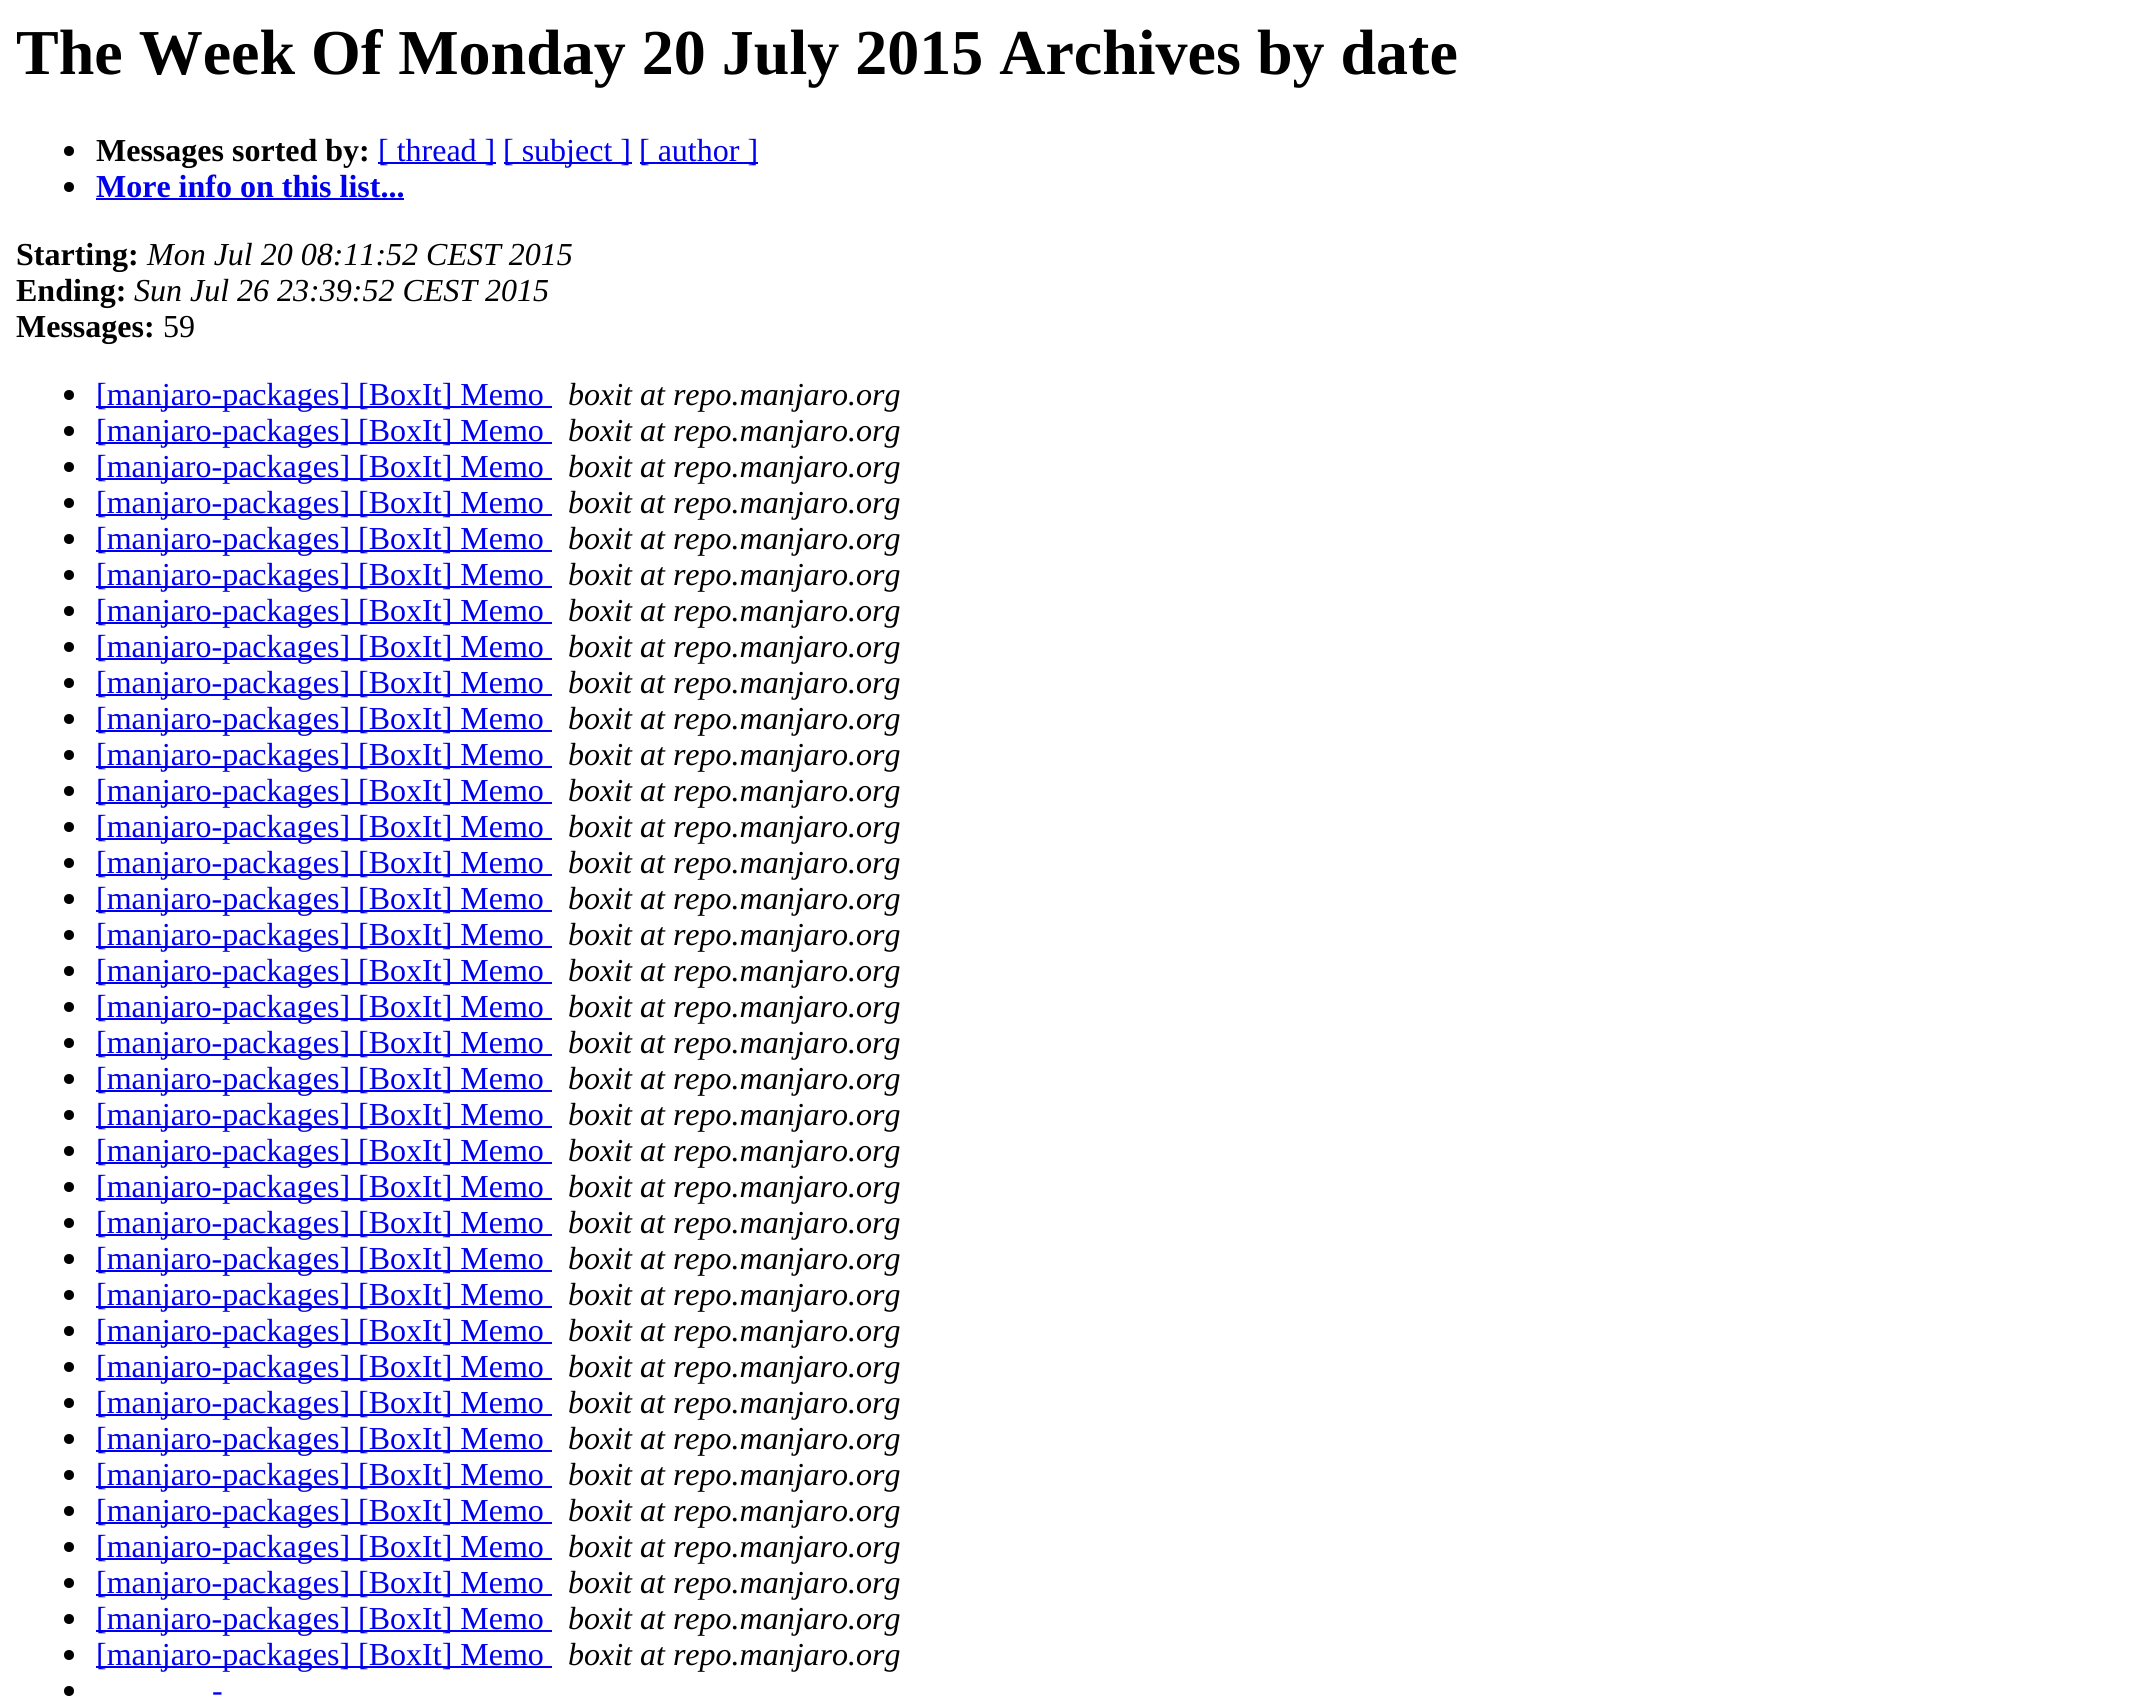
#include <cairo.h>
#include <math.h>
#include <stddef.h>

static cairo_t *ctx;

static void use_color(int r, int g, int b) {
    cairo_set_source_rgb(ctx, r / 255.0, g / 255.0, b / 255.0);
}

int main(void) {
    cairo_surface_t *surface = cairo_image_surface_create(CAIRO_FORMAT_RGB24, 2139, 1696);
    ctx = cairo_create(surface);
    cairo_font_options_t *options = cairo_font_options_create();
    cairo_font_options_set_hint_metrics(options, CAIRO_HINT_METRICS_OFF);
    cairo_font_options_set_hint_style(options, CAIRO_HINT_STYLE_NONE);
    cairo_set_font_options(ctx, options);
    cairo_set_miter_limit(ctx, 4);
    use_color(255, 255, 255);
    cairo_paint(ctx);
    cairo_select_font_face(ctx, "Liberation Serif", CAIRO_FONT_SLANT_NORMAL, CAIRO_FONT_WEIGHT_BOLD);
    cairo_set_font_size(ctx, 64);
    use_color(0, 0, 0);
    cairo_move_to(ctx, 16, 74);
    cairo_show_text(ctx, "The Week Of Monday 20 July 2015 Archives by date");
    cairo_new_path(ctx);
    cairo_arc(ctx, 69, 151, 5, 0, 2 * M_PI);
    cairo_fill(ctx);
    cairo_set_font_size(ctx, 32);
    cairo_move_to(ctx, 96, 161);
    cairo_show_text(ctx, "Messages sorted by:");
    use_color(0, 0, 238);
    cairo_rectangle(ctx, 378, 162, 118, 2);
    cairo_fill(ctx);
    cairo_select_font_face(ctx, "Liberation Serif", CAIRO_FONT_SLANT_NORMAL, CAIRO_FONT_WEIGHT_NORMAL);
    cairo_move_to(ctx, 378, 161);
    cairo_show_text(ctx, "[ thread ]");
    cairo_rectangle(ctx, 504, 162, 128, 2);
    cairo_fill(ctx);
    cairo_move_to(ctx, 503, 161);
    cairo_show_text(ctx, "[ subject ]");
    cairo_rectangle(ctx, 640, 162, 118, 2);
    cairo_fill(ctx);
    cairo_move_to(ctx, 639, 161);
    cairo_show_text(ctx, "[ author ]");
    use_color(0, 0, 0);
    cairo_new_path(ctx);
    cairo_arc(ctx, 69, 187, 5, 0, 2 * M_PI);
    cairo_fill(ctx);
    cairo_select_font_face(ctx, "Liberation Serif", CAIRO_FONT_SLANT_NORMAL, CAIRO_FONT_WEIGHT_BOLD);
    use_color(0, 0, 238);
    cairo_move_to(ctx, 96, 197);
    cairo_show_text(ctx, "More info on this list...");
    cairo_rectangle(ctx, 96, 198, 308, 2);
    cairo_fill(ctx);
    use_color(0, 0, 0);
    cairo_move_to(ctx, 16, 265);
    cairo_show_text(ctx, "Starting:");
    cairo_select_font_face(ctx, "Liberation Serif", CAIRO_FONT_SLANT_ITALIC, CAIRO_FONT_WEIGHT_NORMAL);
    cairo_move_to(ctx, 147, 265);
    cairo_show_text(ctx, "Mon Jul 20 08:11:52 CEST 2015");
    cairo_select_font_face(ctx, "Liberation Serif", CAIRO_FONT_SLANT_NORMAL, CAIRO_FONT_WEIGHT_BOLD);
    cairo_move_to(ctx, 16, 301);
    cairo_show_text(ctx, "Ending:");
    cairo_select_font_face(ctx, "Liberation Serif", CAIRO_FONT_SLANT_ITALIC, CAIRO_FONT_WEIGHT_NORMAL);
    cairo_move_to(ctx, 134, 301);
    cairo_show_text(ctx, "Sun Jul 26 23:39:52 CEST 2015");
    cairo_select_font_face(ctx, "Liberation Serif", CAIRO_FONT_SLANT_NORMAL, CAIRO_FONT_WEIGHT_BOLD);
    cairo_move_to(ctx, 16, 337);
    cairo_show_text(ctx, "Messages:");
    cairo_select_font_face(ctx, "Liberation Serif", CAIRO_FONT_SLANT_NORMAL, CAIRO_FONT_WEIGHT_NORMAL);
    cairo_move_to(ctx, 163, 337);
    cairo_show_text(ctx, "59");
    cairo_new_path(ctx);
    cairo_arc(ctx, 69, 395, 5, 0, 2 * M_PI);
    cairo_fill(ctx);
    use_color(0, 0, 238);
    cairo_rectangle(ctx, 96, 406, 456, 2);
    cairo_fill(ctx);
    cairo_move_to(ctx, 96, 405);
    cairo_show_text(ctx, "[manjaro-packages] [BoxIt] Memo");
    cairo_select_font_face(ctx, "Liberation Serif", CAIRO_FONT_SLANT_ITALIC, CAIRO_FONT_WEIGHT_NORMAL);
    use_color(0, 0, 0);
    cairo_move_to(ctx, 568, 405);
    cairo_show_text(ctx, "boxit at repo.manjaro.org");
    cairo_new_path(ctx);
    cairo_arc(ctx, 69, 431, 5, 0, 2 * M_PI);
    cairo_fill(ctx);
    use_color(0, 0, 238);
    cairo_rectangle(ctx, 96, 442, 456, 2);
    cairo_fill(ctx);
    cairo_select_font_face(ctx, "Liberation Serif", CAIRO_FONT_SLANT_NORMAL, CAIRO_FONT_WEIGHT_NORMAL);
    cairo_move_to(ctx, 96, 441);
    cairo_show_text(ctx, "[manjaro-packages] [BoxIt] Memo");
    cairo_select_font_face(ctx, "Liberation Serif", CAIRO_FONT_SLANT_ITALIC, CAIRO_FONT_WEIGHT_NORMAL);
    use_color(0, 0, 0);
    cairo_move_to(ctx, 568, 441);
    cairo_show_text(ctx, "boxit at repo.manjaro.org");
    cairo_new_path(ctx);
    cairo_arc(ctx, 69, 467, 5, 0, 2 * M_PI);
    cairo_fill(ctx);
    use_color(0, 0, 238);
    cairo_rectangle(ctx, 96, 478, 456, 2);
    cairo_fill(ctx);
    cairo_select_font_face(ctx, "Liberation Serif", CAIRO_FONT_SLANT_NORMAL, CAIRO_FONT_WEIGHT_NORMAL);
    cairo_move_to(ctx, 96, 477);
    cairo_show_text(ctx, "[manjaro-packages] [BoxIt] Memo");
    cairo_select_font_face(ctx, "Liberation Serif", CAIRO_FONT_SLANT_ITALIC, CAIRO_FONT_WEIGHT_NORMAL);
    use_color(0, 0, 0);
    cairo_move_to(ctx, 568, 477);
    cairo_show_text(ctx, "boxit at repo.manjaro.org");
    cairo_new_path(ctx);
    cairo_arc(ctx, 69, 503, 5, 0, 2 * M_PI);
    cairo_fill(ctx);
    use_color(0, 0, 238);
    cairo_rectangle(ctx, 96, 514, 456, 2);
    cairo_fill(ctx);
    cairo_select_font_face(ctx, "Liberation Serif", CAIRO_FONT_SLANT_NORMAL, CAIRO_FONT_WEIGHT_NORMAL);
    cairo_move_to(ctx, 96, 513);
    cairo_show_text(ctx, "[manjaro-packages] [BoxIt] Memo");
    cairo_select_font_face(ctx, "Liberation Serif", CAIRO_FONT_SLANT_ITALIC, CAIRO_FONT_WEIGHT_NORMAL);
    use_color(0, 0, 0);
    cairo_move_to(ctx, 568, 513);
    cairo_show_text(ctx, "boxit at repo.manjaro.org");
    cairo_new_path(ctx);
    cairo_arc(ctx, 69, 539, 5, 0, 2 * M_PI);
    cairo_fill(ctx);
    use_color(0, 0, 238);
    cairo_rectangle(ctx, 96, 550, 456, 2);
    cairo_fill(ctx);
    cairo_select_font_face(ctx, "Liberation Serif", CAIRO_FONT_SLANT_NORMAL, CAIRO_FONT_WEIGHT_NORMAL);
    cairo_move_to(ctx, 96, 549);
    cairo_show_text(ctx, "[manjaro-packages] [BoxIt] Memo");
    cairo_select_font_face(ctx, "Liberation Serif", CAIRO_FONT_SLANT_ITALIC, CAIRO_FONT_WEIGHT_NORMAL);
    use_color(0, 0, 0);
    cairo_move_to(ctx, 568, 549);
    cairo_show_text(ctx, "boxit at repo.manjaro.org");
    cairo_new_path(ctx);
    cairo_arc(ctx, 69, 575, 5, 0, 2 * M_PI);
    cairo_fill(ctx);
    use_color(0, 0, 238);
    cairo_rectangle(ctx, 96, 586, 456, 2);
    cairo_fill(ctx);
    cairo_select_font_face(ctx, "Liberation Serif", CAIRO_FONT_SLANT_NORMAL, CAIRO_FONT_WEIGHT_NORMAL);
    cairo_move_to(ctx, 96, 585);
    cairo_show_text(ctx, "[manjaro-packages] [BoxIt] Memo");
    cairo_select_font_face(ctx, "Liberation Serif", CAIRO_FONT_SLANT_ITALIC, CAIRO_FONT_WEIGHT_NORMAL);
    use_color(0, 0, 0);
    cairo_move_to(ctx, 568, 585);
    cairo_show_text(ctx, "boxit at repo.manjaro.org");
    cairo_new_path(ctx);
    cairo_arc(ctx, 69, 611, 5, 0, 2 * M_PI);
    cairo_fill(ctx);
    use_color(0, 0, 238);
    cairo_rectangle(ctx, 96, 622, 456, 2);
    cairo_fill(ctx);
    cairo_select_font_face(ctx, "Liberation Serif", CAIRO_FONT_SLANT_NORMAL, CAIRO_FONT_WEIGHT_NORMAL);
    cairo_move_to(ctx, 96, 621);
    cairo_show_text(ctx, "[manjaro-packages] [BoxIt] Memo");
    cairo_select_font_face(ctx, "Liberation Serif", CAIRO_FONT_SLANT_ITALIC, CAIRO_FONT_WEIGHT_NORMAL);
    use_color(0, 0, 0);
    cairo_move_to(ctx, 568, 621);
    cairo_show_text(ctx, "boxit at repo.manjaro.org");
    cairo_new_path(ctx);
    cairo_arc(ctx, 69, 647, 5, 0, 2 * M_PI);
    cairo_fill(ctx);
    use_color(0, 0, 238);
    cairo_rectangle(ctx, 96, 658, 456, 2);
    cairo_fill(ctx);
    cairo_select_font_face(ctx, "Liberation Serif", CAIRO_FONT_SLANT_NORMAL, CAIRO_FONT_WEIGHT_NORMAL);
    cairo_move_to(ctx, 96, 657);
    cairo_show_text(ctx, "[manjaro-packages] [BoxIt] Memo");
    cairo_select_font_face(ctx, "Liberation Serif", CAIRO_FONT_SLANT_ITALIC, CAIRO_FONT_WEIGHT_NORMAL);
    use_color(0, 0, 0);
    cairo_move_to(ctx, 568, 657);
    cairo_show_text(ctx, "boxit at repo.manjaro.org");
    cairo_new_path(ctx);
    cairo_arc(ctx, 69, 683, 5, 0, 2 * M_PI);
    cairo_fill(ctx);
    use_color(0, 0, 238);
    cairo_rectangle(ctx, 96, 694, 456, 2);
    cairo_fill(ctx);
    cairo_select_font_face(ctx, "Liberation Serif", CAIRO_FONT_SLANT_NORMAL, CAIRO_FONT_WEIGHT_NORMAL);
    cairo_move_to(ctx, 96, 693);
    cairo_show_text(ctx, "[manjaro-packages] [BoxIt] Memo");
    cairo_select_font_face(ctx, "Liberation Serif", CAIRO_FONT_SLANT_ITALIC, CAIRO_FONT_WEIGHT_NORMAL);
    use_color(0, 0, 0);
    cairo_move_to(ctx, 568, 693);
    cairo_show_text(ctx, "boxit at repo.manjaro.org");
    cairo_new_path(ctx);
    cairo_arc(ctx, 69, 719, 5, 0, 2 * M_PI);
    cairo_fill(ctx);
    use_color(0, 0, 238);
    cairo_rectangle(ctx, 96, 730, 456, 2);
    cairo_fill(ctx);
    cairo_select_font_face(ctx, "Liberation Serif", CAIRO_FONT_SLANT_NORMAL, CAIRO_FONT_WEIGHT_NORMAL);
    cairo_move_to(ctx, 96, 729);
    cairo_show_text(ctx, "[manjaro-packages] [BoxIt] Memo");
    cairo_select_font_face(ctx, "Liberation Serif", CAIRO_FONT_SLANT_ITALIC, CAIRO_FONT_WEIGHT_NORMAL);
    use_color(0, 0, 0);
    cairo_move_to(ctx, 568, 729);
    cairo_show_text(ctx, "boxit at repo.manjaro.org");
    cairo_new_path(ctx);
    cairo_arc(ctx, 69, 755, 5, 0, 2 * M_PI);
    cairo_fill(ctx);
    use_color(0, 0, 238);
    cairo_rectangle(ctx, 96, 766, 456, 2);
    cairo_fill(ctx);
    cairo_select_font_face(ctx, "Liberation Serif", CAIRO_FONT_SLANT_NORMAL, CAIRO_FONT_WEIGHT_NORMAL);
    cairo_move_to(ctx, 96, 765);
    cairo_show_text(ctx, "[manjaro-packages] [BoxIt] Memo");
    cairo_select_font_face(ctx, "Liberation Serif", CAIRO_FONT_SLANT_ITALIC, CAIRO_FONT_WEIGHT_NORMAL);
    use_color(0, 0, 0);
    cairo_move_to(ctx, 568, 765);
    cairo_show_text(ctx, "boxit at repo.manjaro.org");
    cairo_new_path(ctx);
    cairo_arc(ctx, 69, 791, 5, 0, 2 * M_PI);
    cairo_fill(ctx);
    use_color(0, 0, 238);
    cairo_rectangle(ctx, 96, 802, 456, 2);
    cairo_fill(ctx);
    cairo_select_font_face(ctx, "Liberation Serif", CAIRO_FONT_SLANT_NORMAL, CAIRO_FONT_WEIGHT_NORMAL);
    cairo_move_to(ctx, 96, 801);
    cairo_show_text(ctx, "[manjaro-packages] [BoxIt] Memo");
    cairo_select_font_face(ctx, "Liberation Serif", CAIRO_FONT_SLANT_ITALIC, CAIRO_FONT_WEIGHT_NORMAL);
    use_color(0, 0, 0);
    cairo_move_to(ctx, 568, 801);
    cairo_show_text(ctx, "boxit at repo.manjaro.org");
    cairo_new_path(ctx);
    cairo_arc(ctx, 69, 827, 5, 0, 2 * M_PI);
    cairo_fill(ctx);
    use_color(0, 0, 238);
    cairo_rectangle(ctx, 96, 838, 456, 2);
    cairo_fill(ctx);
    cairo_select_font_face(ctx, "Liberation Serif", CAIRO_FONT_SLANT_NORMAL, CAIRO_FONT_WEIGHT_NORMAL);
    cairo_move_to(ctx, 96, 837);
    cairo_show_text(ctx, "[manjaro-packages] [BoxIt] Memo");
    cairo_select_font_face(ctx, "Liberation Serif", CAIRO_FONT_SLANT_ITALIC, CAIRO_FONT_WEIGHT_NORMAL);
    use_color(0, 0, 0);
    cairo_move_to(ctx, 568, 837);
    cairo_show_text(ctx, "boxit at repo.manjaro.org");
    cairo_new_path(ctx);
    cairo_arc(ctx, 69, 863, 5, 0, 2 * M_PI);
    cairo_fill(ctx);
    use_color(0, 0, 238);
    cairo_rectangle(ctx, 96, 874, 456, 2);
    cairo_fill(ctx);
    cairo_select_font_face(ctx, "Liberation Serif", CAIRO_FONT_SLANT_NORMAL, CAIRO_FONT_WEIGHT_NORMAL);
    cairo_move_to(ctx, 96, 873);
    cairo_show_text(ctx, "[manjaro-packages] [BoxIt] Memo");
    cairo_select_font_face(ctx, "Liberation Serif", CAIRO_FONT_SLANT_ITALIC, CAIRO_FONT_WEIGHT_NORMAL);
    use_color(0, 0, 0);
    cairo_move_to(ctx, 568, 873);
    cairo_show_text(ctx, "boxit at repo.manjaro.org");
    cairo_new_path(ctx);
    cairo_arc(ctx, 69, 899, 5, 0, 2 * M_PI);
    cairo_fill(ctx);
    use_color(0, 0, 238);
    cairo_rectangle(ctx, 96, 910, 456, 2);
    cairo_fill(ctx);
    cairo_select_font_face(ctx, "Liberation Serif", CAIRO_FONT_SLANT_NORMAL, CAIRO_FONT_WEIGHT_NORMAL);
    cairo_move_to(ctx, 96, 909);
    cairo_show_text(ctx, "[manjaro-packages] [BoxIt] Memo");
    cairo_select_font_face(ctx, "Liberation Serif", CAIRO_FONT_SLANT_ITALIC, CAIRO_FONT_WEIGHT_NORMAL);
    use_color(0, 0, 0);
    cairo_move_to(ctx, 568, 909);
    cairo_show_text(ctx, "boxit at repo.manjaro.org");
    cairo_new_path(ctx);
    cairo_arc(ctx, 69, 935, 5, 0, 2 * M_PI);
    cairo_fill(ctx);
    use_color(0, 0, 238);
    cairo_rectangle(ctx, 96, 946, 456, 2);
    cairo_fill(ctx);
    cairo_select_font_face(ctx, "Liberation Serif", CAIRO_FONT_SLANT_NORMAL, CAIRO_FONT_WEIGHT_NORMAL);
    cairo_move_to(ctx, 96, 945);
    cairo_show_text(ctx, "[manjaro-packages] [BoxIt] Memo");
    cairo_select_font_face(ctx, "Liberation Serif", CAIRO_FONT_SLANT_ITALIC, CAIRO_FONT_WEIGHT_NORMAL);
    use_color(0, 0, 0);
    cairo_move_to(ctx, 568, 945);
    cairo_show_text(ctx, "boxit at repo.manjaro.org");
    cairo_new_path(ctx);
    cairo_arc(ctx, 69, 971, 5, 0, 2 * M_PI);
    cairo_fill(ctx);
    use_color(0, 0, 238);
    cairo_rectangle(ctx, 96, 982, 456, 2);
    cairo_fill(ctx);
    cairo_select_font_face(ctx, "Liberation Serif", CAIRO_FONT_SLANT_NORMAL, CAIRO_FONT_WEIGHT_NORMAL);
    cairo_move_to(ctx, 96, 981);
    cairo_show_text(ctx, "[manjaro-packages] [BoxIt] Memo");
    cairo_select_font_face(ctx, "Liberation Serif", CAIRO_FONT_SLANT_ITALIC, CAIRO_FONT_WEIGHT_NORMAL);
    use_color(0, 0, 0);
    cairo_move_to(ctx, 568, 981);
    cairo_show_text(ctx, "boxit at repo.manjaro.org");
    cairo_new_path(ctx);
    cairo_arc(ctx, 69, 1007, 5, 0, 2 * M_PI);
    cairo_fill(ctx);
    use_color(0, 0, 238);
    cairo_rectangle(ctx, 96, 1018, 456, 2);
    cairo_fill(ctx);
    cairo_select_font_face(ctx, "Liberation Serif", CAIRO_FONT_SLANT_NORMAL, CAIRO_FONT_WEIGHT_NORMAL);
    cairo_move_to(ctx, 96, 1017);
    cairo_show_text(ctx, "[manjaro-packages] [BoxIt] Memo");
    cairo_select_font_face(ctx, "Liberation Serif", CAIRO_FONT_SLANT_ITALIC, CAIRO_FONT_WEIGHT_NORMAL);
    use_color(0, 0, 0);
    cairo_move_to(ctx, 568, 1017);
    cairo_show_text(ctx, "boxit at repo.manjaro.org");
    cairo_new_path(ctx);
    cairo_arc(ctx, 69, 1043, 5, 0, 2 * M_PI);
    cairo_fill(ctx);
    use_color(0, 0, 238);
    cairo_rectangle(ctx, 96, 1054, 456, 2);
    cairo_fill(ctx);
    cairo_select_font_face(ctx, "Liberation Serif", CAIRO_FONT_SLANT_NORMAL, CAIRO_FONT_WEIGHT_NORMAL);
    cairo_move_to(ctx, 96, 1053);
    cairo_show_text(ctx, "[manjaro-packages] [BoxIt] Memo");
    cairo_select_font_face(ctx, "Liberation Serif", CAIRO_FONT_SLANT_ITALIC, CAIRO_FONT_WEIGHT_NORMAL);
    use_color(0, 0, 0);
    cairo_move_to(ctx, 568, 1053);
    cairo_show_text(ctx, "boxit at repo.manjaro.org");
    cairo_new_path(ctx);
    cairo_arc(ctx, 69, 1079, 5, 0, 2 * M_PI);
    cairo_fill(ctx);
    use_color(0, 0, 238);
    cairo_rectangle(ctx, 96, 1090, 456, 2);
    cairo_fill(ctx);
    cairo_select_font_face(ctx, "Liberation Serif", CAIRO_FONT_SLANT_NORMAL, CAIRO_FONT_WEIGHT_NORMAL);
    cairo_move_to(ctx, 96, 1089);
    cairo_show_text(ctx, "[manjaro-packages] [BoxIt] Memo");
    cairo_select_font_face(ctx, "Liberation Serif", CAIRO_FONT_SLANT_ITALIC, CAIRO_FONT_WEIGHT_NORMAL);
    use_color(0, 0, 0);
    cairo_move_to(ctx, 568, 1089);
    cairo_show_text(ctx, "boxit at repo.manjaro.org");
    cairo_new_path(ctx);
    cairo_arc(ctx, 69, 1115, 5, 0, 2 * M_PI);
    cairo_fill(ctx);
    use_color(0, 0, 238);
    cairo_rectangle(ctx, 96, 1126, 456, 2);
    cairo_fill(ctx);
    cairo_select_font_face(ctx, "Liberation Serif", CAIRO_FONT_SLANT_NORMAL, CAIRO_FONT_WEIGHT_NORMAL);
    cairo_move_to(ctx, 96, 1125);
    cairo_show_text(ctx, "[manjaro-packages] [BoxIt] Memo");
    cairo_select_font_face(ctx, "Liberation Serif", CAIRO_FONT_SLANT_ITALIC, CAIRO_FONT_WEIGHT_NORMAL);
    use_color(0, 0, 0);
    cairo_move_to(ctx, 568, 1125);
    cairo_show_text(ctx, "boxit at repo.manjaro.org");
    cairo_new_path(ctx);
    cairo_arc(ctx, 69, 1151, 5, 0, 2 * M_PI);
    cairo_fill(ctx);
    use_color(0, 0, 238);
    cairo_rectangle(ctx, 96, 1162, 456, 2);
    cairo_fill(ctx);
    cairo_select_font_face(ctx, "Liberation Serif", CAIRO_FONT_SLANT_NORMAL, CAIRO_FONT_WEIGHT_NORMAL);
    cairo_move_to(ctx, 96, 1161);
    cairo_show_text(ctx, "[manjaro-packages] [BoxIt] Memo");
    cairo_select_font_face(ctx, "Liberation Serif", CAIRO_FONT_SLANT_ITALIC, CAIRO_FONT_WEIGHT_NORMAL);
    use_color(0, 0, 0);
    cairo_move_to(ctx, 568, 1161);
    cairo_show_text(ctx, "boxit at repo.manjaro.org");
    cairo_new_path(ctx);
    cairo_arc(ctx, 69, 1187, 5, 0, 2 * M_PI);
    cairo_fill(ctx);
    use_color(0, 0, 238);
    cairo_rectangle(ctx, 96, 1198, 456, 2);
    cairo_fill(ctx);
    cairo_select_font_face(ctx, "Liberation Serif", CAIRO_FONT_SLANT_NORMAL, CAIRO_FONT_WEIGHT_NORMAL);
    cairo_move_to(ctx, 96, 1197);
    cairo_show_text(ctx, "[manjaro-packages] [BoxIt] Memo");
    cairo_select_font_face(ctx, "Liberation Serif", CAIRO_FONT_SLANT_ITALIC, CAIRO_FONT_WEIGHT_NORMAL);
    use_color(0, 0, 0);
    cairo_move_to(ctx, 568, 1197);
    cairo_show_text(ctx, "boxit at repo.manjaro.org");
    cairo_new_path(ctx);
    cairo_arc(ctx, 69, 1223, 5, 0, 2 * M_PI);
    cairo_fill(ctx);
    use_color(0, 0, 238);
    cairo_rectangle(ctx, 96, 1234, 456, 2);
    cairo_fill(ctx);
    cairo_select_font_face(ctx, "Liberation Serif", CAIRO_FONT_SLANT_NORMAL, CAIRO_FONT_WEIGHT_NORMAL);
    cairo_move_to(ctx, 96, 1233);
    cairo_show_text(ctx, "[manjaro-packages] [BoxIt] Memo");
    cairo_select_font_face(ctx, "Liberation Serif", CAIRO_FONT_SLANT_ITALIC, CAIRO_FONT_WEIGHT_NORMAL);
    use_color(0, 0, 0);
    cairo_move_to(ctx, 568, 1233);
    cairo_show_text(ctx, "boxit at repo.manjaro.org");
    cairo_new_path(ctx);
    cairo_arc(ctx, 69, 1259, 5, 0, 2 * M_PI);
    cairo_fill(ctx);
    use_color(0, 0, 238);
    cairo_rectangle(ctx, 96, 1270, 456, 2);
    cairo_fill(ctx);
    cairo_select_font_face(ctx, "Liberation Serif", CAIRO_FONT_SLANT_NORMAL, CAIRO_FONT_WEIGHT_NORMAL);
    cairo_move_to(ctx, 96, 1269);
    cairo_show_text(ctx, "[manjaro-packages] [BoxIt] Memo");
    cairo_select_font_face(ctx, "Liberation Serif", CAIRO_FONT_SLANT_ITALIC, CAIRO_FONT_WEIGHT_NORMAL);
    use_color(0, 0, 0);
    cairo_move_to(ctx, 568, 1269);
    cairo_show_text(ctx, "boxit at repo.manjaro.org");
    cairo_new_path(ctx);
    cairo_arc(ctx, 69, 1295, 5, 0, 2 * M_PI);
    cairo_fill(ctx);
    use_color(0, 0, 238);
    cairo_rectangle(ctx, 96, 1306, 456, 2);
    cairo_fill(ctx);
    cairo_select_font_face(ctx, "Liberation Serif", CAIRO_FONT_SLANT_NORMAL, CAIRO_FONT_WEIGHT_NORMAL);
    cairo_move_to(ctx, 96, 1305);
    cairo_show_text(ctx, "[manjaro-packages] [BoxIt] Memo");
    cairo_select_font_face(ctx, "Liberation Serif", CAIRO_FONT_SLANT_ITALIC, CAIRO_FONT_WEIGHT_NORMAL);
    use_color(0, 0, 0);
    cairo_move_to(ctx, 568, 1305);
    cairo_show_text(ctx, "boxit at repo.manjaro.org");
    cairo_new_path(ctx);
    cairo_arc(ctx, 69, 1331, 5, 0, 2 * M_PI);
    cairo_fill(ctx);
    use_color(0, 0, 238);
    cairo_rectangle(ctx, 96, 1342, 456, 2);
    cairo_fill(ctx);
    cairo_select_font_face(ctx, "Liberation Serif", CAIRO_FONT_SLANT_NORMAL, CAIRO_FONT_WEIGHT_NORMAL);
    cairo_move_to(ctx, 96, 1341);
    cairo_show_text(ctx, "[manjaro-packages] [BoxIt] Memo");
    cairo_select_font_face(ctx, "Liberation Serif", CAIRO_FONT_SLANT_ITALIC, CAIRO_FONT_WEIGHT_NORMAL);
    use_color(0, 0, 0);
    cairo_move_to(ctx, 568, 1341);
    cairo_show_text(ctx, "boxit at repo.manjaro.org");
    cairo_new_path(ctx);
    cairo_arc(ctx, 69, 1367, 5, 0, 2 * M_PI);
    cairo_fill(ctx);
    use_color(0, 0, 238);
    cairo_rectangle(ctx, 96, 1378, 456, 2);
    cairo_fill(ctx);
    cairo_select_font_face(ctx, "Liberation Serif", CAIRO_FONT_SLANT_NORMAL, CAIRO_FONT_WEIGHT_NORMAL);
    cairo_move_to(ctx, 96, 1377);
    cairo_show_text(ctx, "[manjaro-packages] [BoxIt] Memo");
    cairo_select_font_face(ctx, "Liberation Serif", CAIRO_FONT_SLANT_ITALIC, CAIRO_FONT_WEIGHT_NORMAL);
    use_color(0, 0, 0);
    cairo_move_to(ctx, 568, 1377);
    cairo_show_text(ctx, "boxit at repo.manjaro.org");
    cairo_new_path(ctx);
    cairo_arc(ctx, 69, 1403, 5, 0, 2 * M_PI);
    cairo_fill(ctx);
    use_color(0, 0, 238);
    cairo_rectangle(ctx, 96, 1414, 456, 2);
    cairo_fill(ctx);
    cairo_select_font_face(ctx, "Liberation Serif", CAIRO_FONT_SLANT_NORMAL, CAIRO_FONT_WEIGHT_NORMAL);
    cairo_move_to(ctx, 96, 1413);
    cairo_show_text(ctx, "[manjaro-packages] [BoxIt] Memo");
    cairo_select_font_face(ctx, "Liberation Serif", CAIRO_FONT_SLANT_ITALIC, CAIRO_FONT_WEIGHT_NORMAL);
    use_color(0, 0, 0);
    cairo_move_to(ctx, 568, 1413);
    cairo_show_text(ctx, "boxit at repo.manjaro.org");
    cairo_new_path(ctx);
    cairo_arc(ctx, 69, 1439, 5, 0, 2 * M_PI);
    cairo_fill(ctx);
    use_color(0, 0, 238);
    cairo_rectangle(ctx, 96, 1450, 456, 2);
    cairo_fill(ctx);
    cairo_select_font_face(ctx, "Liberation Serif", CAIRO_FONT_SLANT_NORMAL, CAIRO_FONT_WEIGHT_NORMAL);
    cairo_move_to(ctx, 96, 1449);
    cairo_show_text(ctx, "[manjaro-packages] [BoxIt] Memo");
    cairo_select_font_face(ctx, "Liberation Serif", CAIRO_FONT_SLANT_ITALIC, CAIRO_FONT_WEIGHT_NORMAL);
    use_color(0, 0, 0);
    cairo_move_to(ctx, 568, 1449);
    cairo_show_text(ctx, "boxit at repo.manjaro.org");
    cairo_new_path(ctx);
    cairo_arc(ctx, 69, 1475, 5, 0, 2 * M_PI);
    cairo_fill(ctx);
    use_color(0, 0, 238);
    cairo_rectangle(ctx, 96, 1486, 456, 2);
    cairo_fill(ctx);
    cairo_select_font_face(ctx, "Liberation Serif", CAIRO_FONT_SLANT_NORMAL, CAIRO_FONT_WEIGHT_NORMAL);
    cairo_move_to(ctx, 96, 1485);
    cairo_show_text(ctx, "[manjaro-packages] [BoxIt] Memo");
    cairo_select_font_face(ctx, "Liberation Serif", CAIRO_FONT_SLANT_ITALIC, CAIRO_FONT_WEIGHT_NORMAL);
    use_color(0, 0, 0);
    cairo_move_to(ctx, 568, 1485);
    cairo_show_text(ctx, "boxit at repo.manjaro.org");
    cairo_new_path(ctx);
    cairo_arc(ctx, 69, 1511, 5, 0, 2 * M_PI);
    cairo_fill(ctx);
    use_color(0, 0, 238);
    cairo_rectangle(ctx, 96, 1522, 456, 2);
    cairo_fill(ctx);
    cairo_select_font_face(ctx, "Liberation Serif", CAIRO_FONT_SLANT_NORMAL, CAIRO_FONT_WEIGHT_NORMAL);
    cairo_move_to(ctx, 96, 1521);
    cairo_show_text(ctx, "[manjaro-packages] [BoxIt] Memo");
    cairo_select_font_face(ctx, "Liberation Serif", CAIRO_FONT_SLANT_ITALIC, CAIRO_FONT_WEIGHT_NORMAL);
    use_color(0, 0, 0);
    cairo_move_to(ctx, 568, 1521);
    cairo_show_text(ctx, "boxit at repo.manjaro.org");
    cairo_new_path(ctx);
    cairo_arc(ctx, 69, 1547, 5, 0, 2 * M_PI);
    cairo_fill(ctx);
    use_color(0, 0, 238);
    cairo_rectangle(ctx, 96, 1558, 456, 2);
    cairo_fill(ctx);
    cairo_select_font_face(ctx, "Liberation Serif", CAIRO_FONT_SLANT_NORMAL, CAIRO_FONT_WEIGHT_NORMAL);
    cairo_move_to(ctx, 96, 1557);
    cairo_show_text(ctx, "[manjaro-packages] [BoxIt] Memo");
    cairo_select_font_face(ctx, "Liberation Serif", CAIRO_FONT_SLANT_ITALIC, CAIRO_FONT_WEIGHT_NORMAL);
    use_color(0, 0, 0);
    cairo_move_to(ctx, 568, 1557);
    cairo_show_text(ctx, "boxit at repo.manjaro.org");
    cairo_new_path(ctx);
    cairo_arc(ctx, 69, 1583, 5, 0, 2 * M_PI);
    cairo_fill(ctx);
    use_color(0, 0, 238);
    cairo_rectangle(ctx, 96, 1594, 456, 2);
    cairo_fill(ctx);
    cairo_select_font_face(ctx, "Liberation Serif", CAIRO_FONT_SLANT_NORMAL, CAIRO_FONT_WEIGHT_NORMAL);
    cairo_move_to(ctx, 96, 1593);
    cairo_show_text(ctx, "[manjaro-packages] [BoxIt] Memo");
    cairo_select_font_face(ctx, "Liberation Serif", CAIRO_FONT_SLANT_ITALIC, CAIRO_FONT_WEIGHT_NORMAL);
    use_color(0, 0, 0);
    cairo_move_to(ctx, 568, 1593);
    cairo_show_text(ctx, "boxit at repo.manjaro.org");
    cairo_new_path(ctx);
    cairo_arc(ctx, 69, 1619, 5, 0, 2 * M_PI);
    cairo_fill(ctx);
    use_color(0, 0, 238);
    cairo_rectangle(ctx, 96, 1630, 456, 2);
    cairo_fill(ctx);
    cairo_select_font_face(ctx, "Liberation Serif", CAIRO_FONT_SLANT_NORMAL, CAIRO_FONT_WEIGHT_NORMAL);
    cairo_move_to(ctx, 96, 1629);
    cairo_show_text(ctx, "[manjaro-packages] [BoxIt] Memo");
    cairo_select_font_face(ctx, "Liberation Serif", CAIRO_FONT_SLANT_ITALIC, CAIRO_FONT_WEIGHT_NORMAL);
    use_color(0, 0, 0);
    cairo_move_to(ctx, 568, 1629);
    cairo_show_text(ctx, "boxit at repo.manjaro.org");
    cairo_new_path(ctx);
    cairo_arc(ctx, 69, 1655, 5, 0, 2 * M_PI);
    cairo_fill(ctx);
    use_color(0, 0, 238);
    cairo_rectangle(ctx, 96, 1666, 456, 2);
    cairo_fill(ctx);
    cairo_select_font_face(ctx, "Liberation Serif", CAIRO_FONT_SLANT_NORMAL, CAIRO_FONT_WEIGHT_NORMAL);
    cairo_move_to(ctx, 96, 1665);
    cairo_show_text(ctx, "[manjaro-packages] [BoxIt] Memo");
    cairo_select_font_face(ctx, "Liberation Serif", CAIRO_FONT_SLANT_ITALIC, CAIRO_FONT_WEIGHT_NORMAL);
    use_color(0, 0, 0);
    cairo_move_to(ctx, 568, 1665);
    cairo_show_text(ctx, "boxit at repo.manjaro.org");
    cairo_new_path(ctx);
    cairo_arc(ctx, 69, 1691, 5, 0, 2 * M_PI);
    cairo_fill(ctx);
    cairo_select_font_face(ctx, "Liberation Serif", CAIRO_FONT_SLANT_NORMAL, CAIRO_FONT_WEIGHT_NORMAL);
    use_color(0, 0, 238);
    cairo_move_to(ctx, 212, 1701);
    cairo_show_text(ctx, "-");
    cairo_surface_write_to_png(surface, "result.png");
    cairo_font_options_destroy(options);
    cairo_destroy(ctx);
    cairo_surface_destroy(surface);
    return 0;
}
